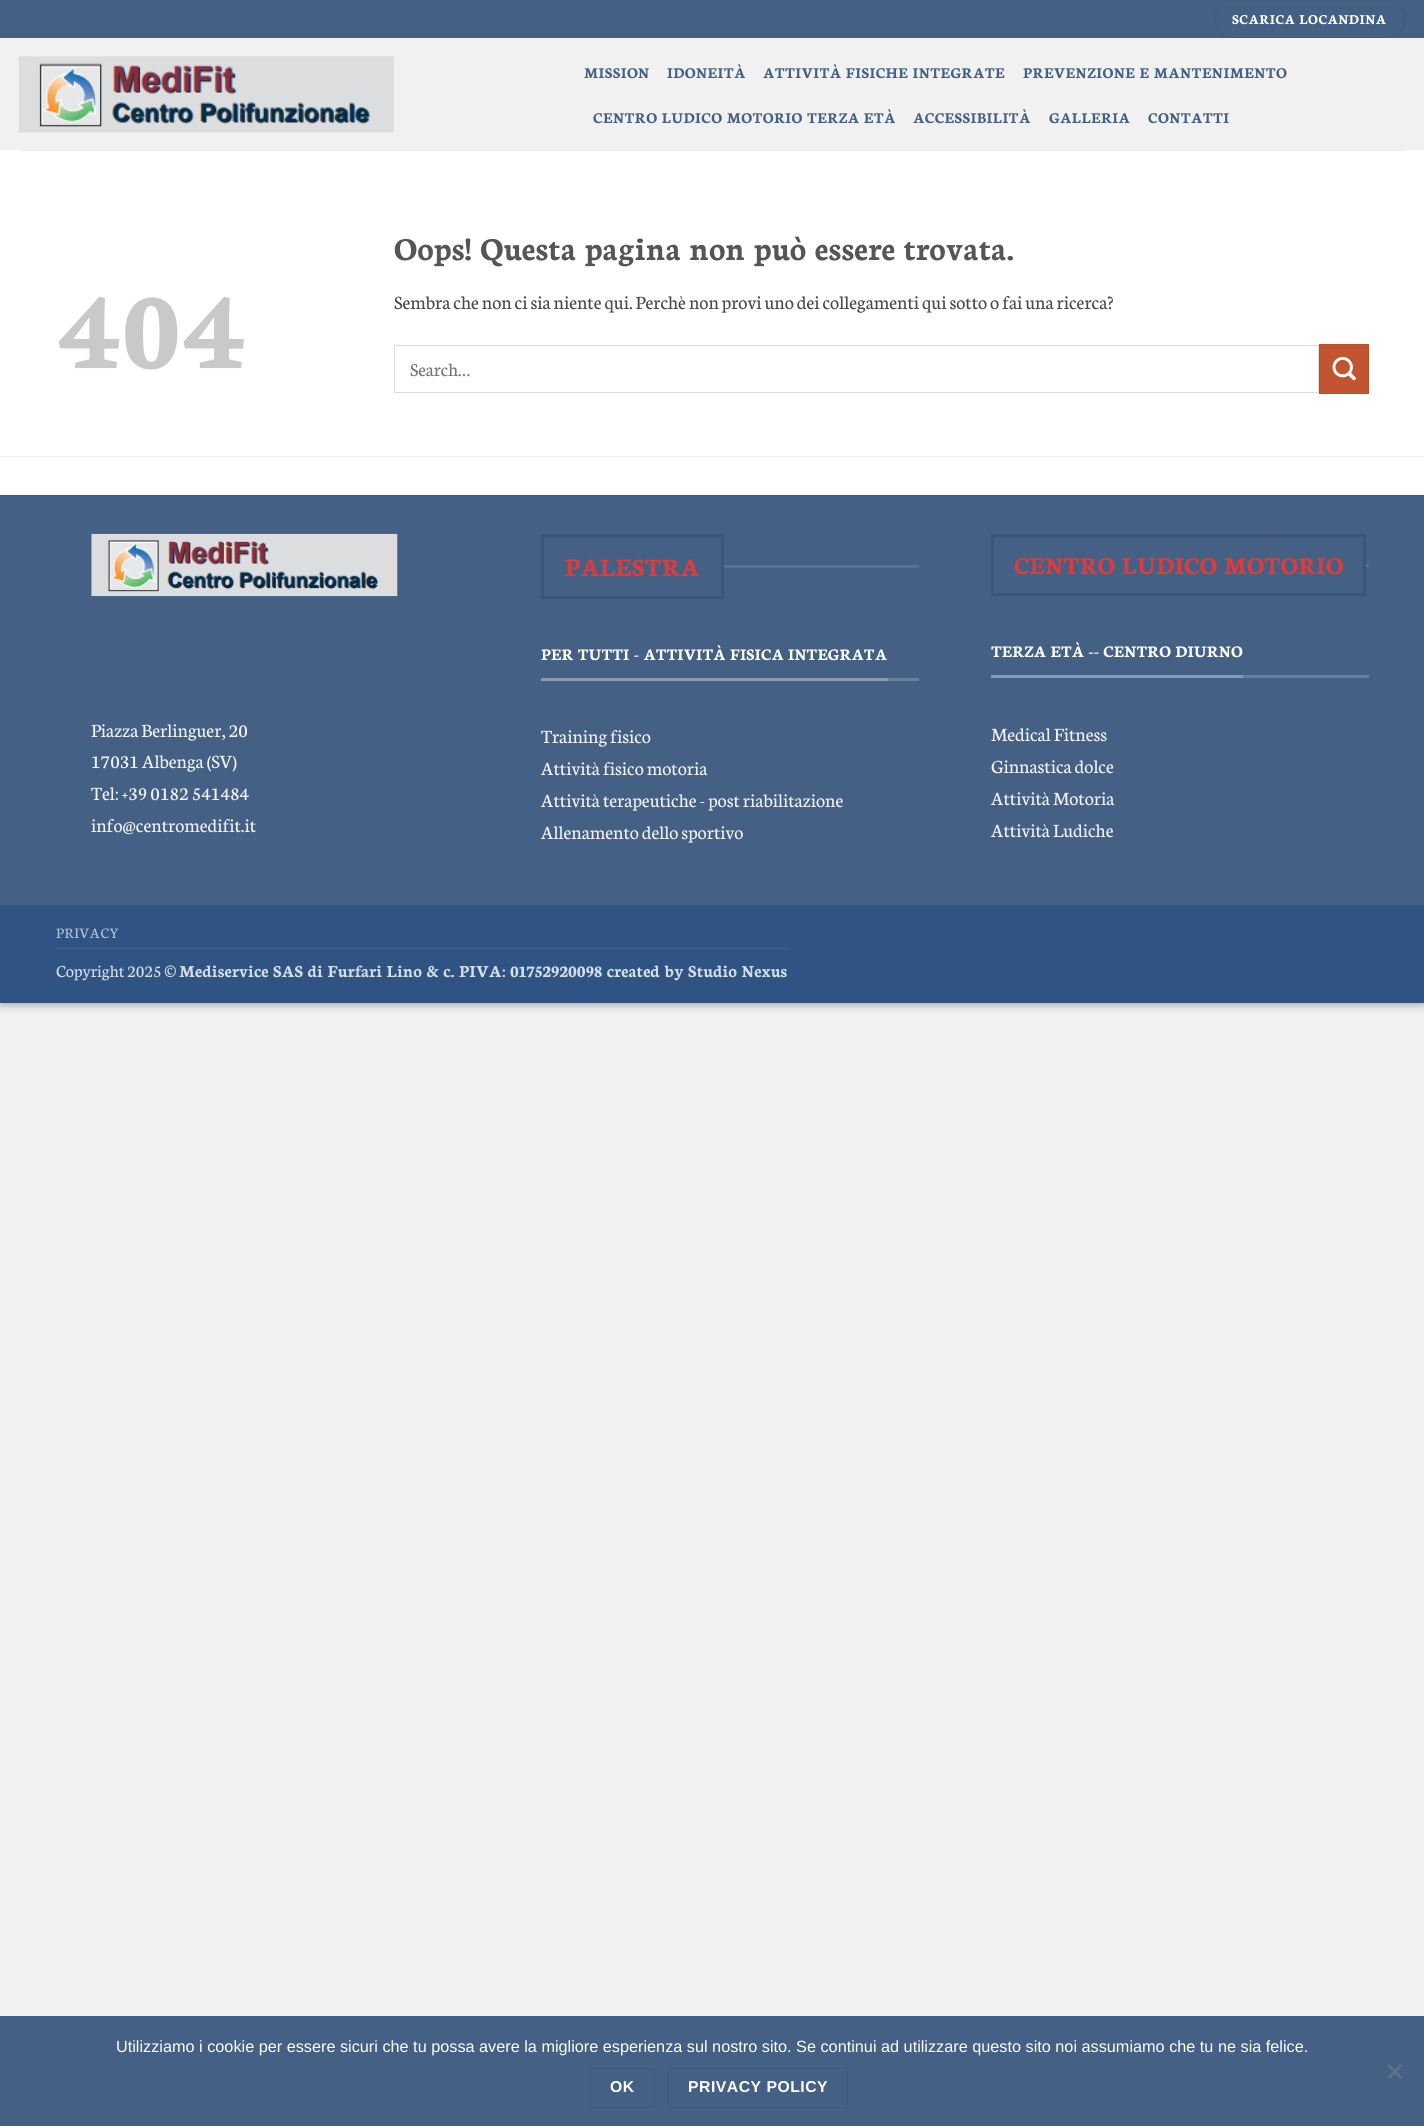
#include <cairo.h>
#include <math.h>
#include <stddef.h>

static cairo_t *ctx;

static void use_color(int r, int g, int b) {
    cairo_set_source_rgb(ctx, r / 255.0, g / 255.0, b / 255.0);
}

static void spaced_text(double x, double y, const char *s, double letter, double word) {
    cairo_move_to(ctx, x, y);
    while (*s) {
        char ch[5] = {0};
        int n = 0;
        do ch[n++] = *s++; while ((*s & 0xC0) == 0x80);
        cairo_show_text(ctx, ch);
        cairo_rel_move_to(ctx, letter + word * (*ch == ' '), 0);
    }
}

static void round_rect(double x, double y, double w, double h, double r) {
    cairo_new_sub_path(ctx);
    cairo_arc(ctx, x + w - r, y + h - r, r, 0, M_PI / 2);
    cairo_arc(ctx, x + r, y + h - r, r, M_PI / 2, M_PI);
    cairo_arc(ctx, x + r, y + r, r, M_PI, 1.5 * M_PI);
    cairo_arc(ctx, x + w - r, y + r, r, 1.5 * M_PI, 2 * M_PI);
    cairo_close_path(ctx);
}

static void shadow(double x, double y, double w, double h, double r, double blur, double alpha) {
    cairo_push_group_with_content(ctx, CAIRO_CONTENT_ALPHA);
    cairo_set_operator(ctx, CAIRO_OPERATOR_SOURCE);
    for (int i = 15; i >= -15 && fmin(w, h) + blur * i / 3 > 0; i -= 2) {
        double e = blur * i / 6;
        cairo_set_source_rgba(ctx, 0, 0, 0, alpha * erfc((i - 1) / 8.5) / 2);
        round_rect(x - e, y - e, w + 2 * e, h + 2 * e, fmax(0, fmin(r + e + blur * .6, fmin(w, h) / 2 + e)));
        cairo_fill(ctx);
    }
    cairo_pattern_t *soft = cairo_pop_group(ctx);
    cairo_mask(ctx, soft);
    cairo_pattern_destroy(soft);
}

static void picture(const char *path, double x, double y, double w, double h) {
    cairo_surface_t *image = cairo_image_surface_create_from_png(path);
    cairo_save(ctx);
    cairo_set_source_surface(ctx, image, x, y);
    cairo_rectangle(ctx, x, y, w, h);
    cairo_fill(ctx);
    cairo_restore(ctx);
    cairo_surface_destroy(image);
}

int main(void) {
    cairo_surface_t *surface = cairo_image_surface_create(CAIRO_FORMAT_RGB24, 1424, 2126);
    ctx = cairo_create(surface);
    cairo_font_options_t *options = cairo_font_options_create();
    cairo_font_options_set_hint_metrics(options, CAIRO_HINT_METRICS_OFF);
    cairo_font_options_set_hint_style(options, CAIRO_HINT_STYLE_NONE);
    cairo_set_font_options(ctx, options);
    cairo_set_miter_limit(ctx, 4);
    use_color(241, 241, 241);
    cairo_paint(ctx);
    use_color(0, 0, 0);
    shadow(0, 4, 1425, 1002, 0, 4, 0.23);
    shadow(5, 9, 1415, 992, 0, 4, 0.16);
    use_color(255, 255, 255);
    cairo_rectangle(ctx, 0, 150, 1424, 345);
    cairo_fill(ctx);
    use_color(68, 96, 132);
    cairo_rectangle(ctx, 0, 0, 1424, 38);
    cairo_fill(ctx);
    round_rect(1214.5, 0.5, 191, 37, 18.5);
    use_color(65, 91, 125);
    cairo_set_line_width(ctx, 1);
    cairo_stroke(ctx);
    cairo_select_font_face(ctx, "Neuton", CAIRO_FONT_SLANT_NORMAL, CAIRO_FONT_WEIGHT_BOLD);
    cairo_set_font_size(ctx, 14.5);
    use_color(255, 255, 255);
    spaced_text(1232, 24, "SCARICA LOCANDINA", 0.4, 0);
    use_color(241, 241, 241);
    cairo_rectangle(ctx, 0, 38, 1424, 112);
    cairo_fill(ctx);
    picture("img1.png", 18, 56, 376, 77);
    cairo_set_font_size(ctx, 16);
    use_color(68, 96, 132);
    spaced_text(584, 78, "MISSION", 0.3, 0);
    spaced_text(667, 78, "IDONEITÀ", 0.3, 0);
    spaced_text(763, 78, "ATTIVITÀ FISICHE INTEGRATE", 0.3, 0);
    spaced_text(1023, 78, "PREVENZIONE E MANTENIMENTO", 0.3, 0);
    spaced_text(593, 123, "CENTRO LUDICO MOTORIO TERZA ETÀ", 0.3, 0);
    spaced_text(913, 123, "ACCESSIBILITÀ", 0.3, 0);
    spaced_text(1049, 123, "GALLERIA", 0.3, 0);
    spaced_text(1148, 123, "CONTATTI", 0.3, 0);
    use_color(237, 237, 237);
    cairo_rectangle(ctx, 19, 150, 1387, 1);
    cairo_fill(ctx);
    cairo_set_font_size(ctx, 120);
    use_color(201, 201, 201);
    cairo_move_to(ctx, 56, 368);
    cairo_show_text(ctx, "404");
    cairo_set_font_size(ctx, 34);
    use_color(85, 85, 85);
    cairo_move_to(ctx, 394, 260);
    cairo_show_text(ctx, "Oops! Questa pagina non può essere trovata.");
    cairo_select_font_face(ctx, "Neuton", CAIRO_FONT_SLANT_NORMAL, CAIRO_FONT_WEIGHT_NORMAL);
    cairo_set_font_size(ctx, 20);
    use_color(74, 74, 74);
    cairo_move_to(ctx, 394, 309);
    cairo_show_text(ctx, "Sembra che non ci sia niente qui. Perchè non provi uno dei collegamenti qui sotto o fai una ricerca?");
    cairo_rectangle(ctx, 394.5, 345.5, 924, 47);
    use_color(221, 221, 221);
    cairo_stroke(ctx);
    cairo_set_font_size(ctx, 19.5);
    use_color(117, 117, 117);
    cairo_move_to(ctx, 410, 376);
    cairo_show_text(ctx, "Search…");
    use_color(192, 85, 48);
    cairo_rectangle(ctx, 1319.5, 344.5, 49, 49);
    cairo_fill_preserve(ctx);
    use_color(182, 81, 46);
    cairo_stroke(ctx);
    picture("img2.png", 1332, 356, 24, 25);
    use_color(242, 242, 242);
    cairo_rectangle(ctx, 0, 456, 1424, 1);
    cairo_fill(ctx);
    use_color(68, 96, 132);
    cairo_rectangle(ctx, 0, 496, 1424, 409);
    cairo_fill(ctx);
    use_color(65, 91, 125);
    cairo_rectangle(ctx, 0, 495, 1424, 1);
    cairo_fill(ctx);
    picture("img3.png", 91, 533, 307, 64);
    cairo_set_font_size(ctx, 20);
    use_color(241, 241, 241);
    cairo_move_to(ctx, 91, 737);
    cairo_show_text(ctx, "Piazza Berlinguer, 20");
    cairo_move_to(ctx, 91, 768);
    cairo_show_text(ctx, "17031 Albenga (SV)");
    cairo_move_to(ctx, 91, 800);
    cairo_show_text(ctx, "Tel: +39 0182 541484");
    cairo_move_to(ctx, 91, 832);
    cairo_show_text(ctx, "info@centromedifit.it");
    cairo_rectangle(ctx, 542.5, 535.5, 180, 62);
    use_color(61, 86, 119);
    cairo_set_line_width(ctx, 3);
    cairo_stroke(ctx);
    cairo_select_font_face(ctx, "Neuton", CAIRO_FONT_SLANT_NORMAL, CAIRO_FONT_WEIGHT_BOLD);
    cairo_set_font_size(ctx, 27);
    use_color(225, 58, 58);
    cairo_move_to(ctx, 565, 576);
    cairo_show_text(ctx, "PALESTRA");
    use_color(87, 112, 144);
    cairo_rectangle(ctx, 724, 565, 195, 3);
    cairo_fill(ctx);
    use_color(105, 128, 157);
    cairo_rectangle(ctx, 888, 678, 31, 3);
    cairo_fill(ctx);
    use_color(135, 153, 177);
    cairo_rectangle(ctx, 541, 678, 347, 3);
    cairo_fill(ctx);
    cairo_set_font_size(ctx, 17.3);
    use_color(255, 255, 255);
    cairo_move_to(ctx, 541, 660);
    cairo_show_text(ctx, "PER TUTTI - ATTIVITÀ FISICA INTEGRATA");
    cairo_select_font_face(ctx, "Neuton", CAIRO_FONT_SLANT_NORMAL, CAIRO_FONT_WEIGHT_NORMAL);
    cairo_set_font_size(ctx, 20);
    use_color(241, 241, 241);
    cairo_move_to(ctx, 541, 743);
    cairo_show_text(ctx, "Training fisico");
    cairo_move_to(ctx, 541, 775);
    cairo_show_text(ctx, "Attività fisico motoria");
    cairo_move_to(ctx, 541, 807);
    cairo_show_text(ctx, "Attività terapeutiche - post riabilitazione");
    cairo_move_to(ctx, 541, 839);
    cairo_show_text(ctx, "Allenamento dello sportivo");
    cairo_rectangle(ctx, 992.5, 535.5, 372, 59);
    use_color(61, 86, 119);
    cairo_stroke(ctx);
    cairo_select_font_face(ctx, "Neuton", CAIRO_FONT_SLANT_NORMAL, CAIRO_FONT_WEIGHT_BOLD);
    cairo_set_font_size(ctx, 25.9);
    use_color(225, 58, 58);
    cairo_move_to(ctx, 1014, 574);
    cairo_show_text(ctx, "CENTRO LUDICO MOTORIO");
    use_color(87, 112, 144);
    cairo_rectangle(ctx, 1366, 564, 3, 3);
    cairo_fill(ctx);
    use_color(105, 128, 157);
    cairo_rectangle(ctx, 1243, 675, 126, 3);
    cairo_fill(ctx);
    use_color(135, 153, 177);
    cairo_rectangle(ctx, 991, 675, 252, 3);
    cairo_fill(ctx);
    cairo_set_font_size(ctx, 17.3);
    use_color(255, 255, 255);
    cairo_move_to(ctx, 991, 657);
    cairo_show_text(ctx, "TERZA ETÀ -- CENTRO DIURNO");
    cairo_select_font_face(ctx, "Neuton", CAIRO_FONT_SLANT_NORMAL, CAIRO_FONT_WEIGHT_NORMAL);
    cairo_set_font_size(ctx, 20);
    use_color(241, 241, 241);
    cairo_move_to(ctx, 991, 741);
    cairo_show_text(ctx, "Medical Fitness");
    cairo_move_to(ctx, 991, 773);
    cairo_show_text(ctx, "Ginnastica dolce");
    cairo_move_to(ctx, 991, 805);
    cairo_show_text(ctx, "Attività Motoria");
    cairo_move_to(ctx, 991, 837);
    cairo_show_text(ctx, "Attività Ludiche");
    use_color(47, 84, 132);
    cairo_rectangle(ctx, 0, 905, 1424, 98);
    cairo_fill(ctx);
    use_color(60, 95, 140);
    cairo_rectangle(ctx, 56, 948, 732, 1);
    cairo_fill(ctx);
    cairo_set_font_size(ctx, 15.5);
    use_color(180, 194, 210);
    spaced_text(56, 938, "PRIVACY", 0.75, 0);
    cairo_set_font_size(ctx, 18);
    use_color(213, 221, 230);
    cairo_move_to(ctx, 56, 977);
    cairo_show_text(ctx, "Copyright 2025 ©");
    cairo_select_font_face(ctx, "Neuton", CAIRO_FONT_SLANT_NORMAL, CAIRO_FONT_WEIGHT_BOLD);
    cairo_move_to(ctx, 179, 977);
    cairo_show_text(ctx, "Mediservice SAS di Furfari Lino & c. PIVA: 01752920098 created by Studio Nexus");
    use_color(68, 96, 132);
    cairo_rectangle(ctx, 0, 2016, 1424, 110);
    cairo_fill(ctx);
    cairo_select_font_face(ctx, "Liberation Sans", CAIRO_FONT_SLANT_NORMAL, CAIRO_FONT_WEIGHT_NORMAL);
    cairo_set_font_size(ctx, 16.25);
    use_color(255, 255, 255);
    cairo_move_to(ctx, 116, 2052);
    cairo_show_text(ctx, "Utilizziamo i cookie per essere sicuri che tu possa avere la migliore esperienza sul nostro sito. Se continui ad utilizzare questo sito noi assumiamo che tu ne sia felice.");
    use_color(98, 112, 130);
    cairo_new_path(ctx);
    cairo_move_to(ctx, 1400.5, 2064);
    cairo_line_to(ctx, 1402.5, 2066);
    cairo_line_to(ctx, 1389.5, 2079);
    cairo_line_to(ctx, 1387.5, 2077.5);
    cairo_close_path(ctx);
    cairo_fill(ctx);
    cairo_new_path(ctx);
    cairo_move_to(ctx, 1387.5, 2066);
    cairo_line_to(ctx, 1389.5, 2064);
    cairo_line_to(ctx, 1402.5, 2077.5);
    cairo_line_to(ctx, 1400.5, 2079);
    cairo_close_path(ctx);
    cairo_fill(ctx);
    cairo_rectangle(ctx, 590.5, 2068.5, 64, 39);
    use_color(65, 91, 125);
    cairo_set_line_width(ctx, 1);
    cairo_stroke(ctx);
    cairo_select_font_face(ctx, "Liberation Sans", CAIRO_FONT_SLANT_NORMAL, CAIRO_FONT_WEIGHT_BOLD);
    cairo_set_font_size(ctx, 15.75);
    use_color(255, 255, 255);
    spaced_text(610, 2092, "OK", 0.5, 0);
    cairo_rectangle(ctx, 668.5, 2068.5, 179, 39);
    use_color(65, 91, 125);
    cairo_stroke(ctx);
    use_color(255, 255, 255);
    spaced_text(688, 2092, "PRIVACY POLICY", 0.5, 0);
    cairo_surface_write_to_png(surface, "result.png");
    cairo_font_options_destroy(options);
    cairo_destroy(ctx);
    cairo_surface_destroy(surface);
    return 0;
}
